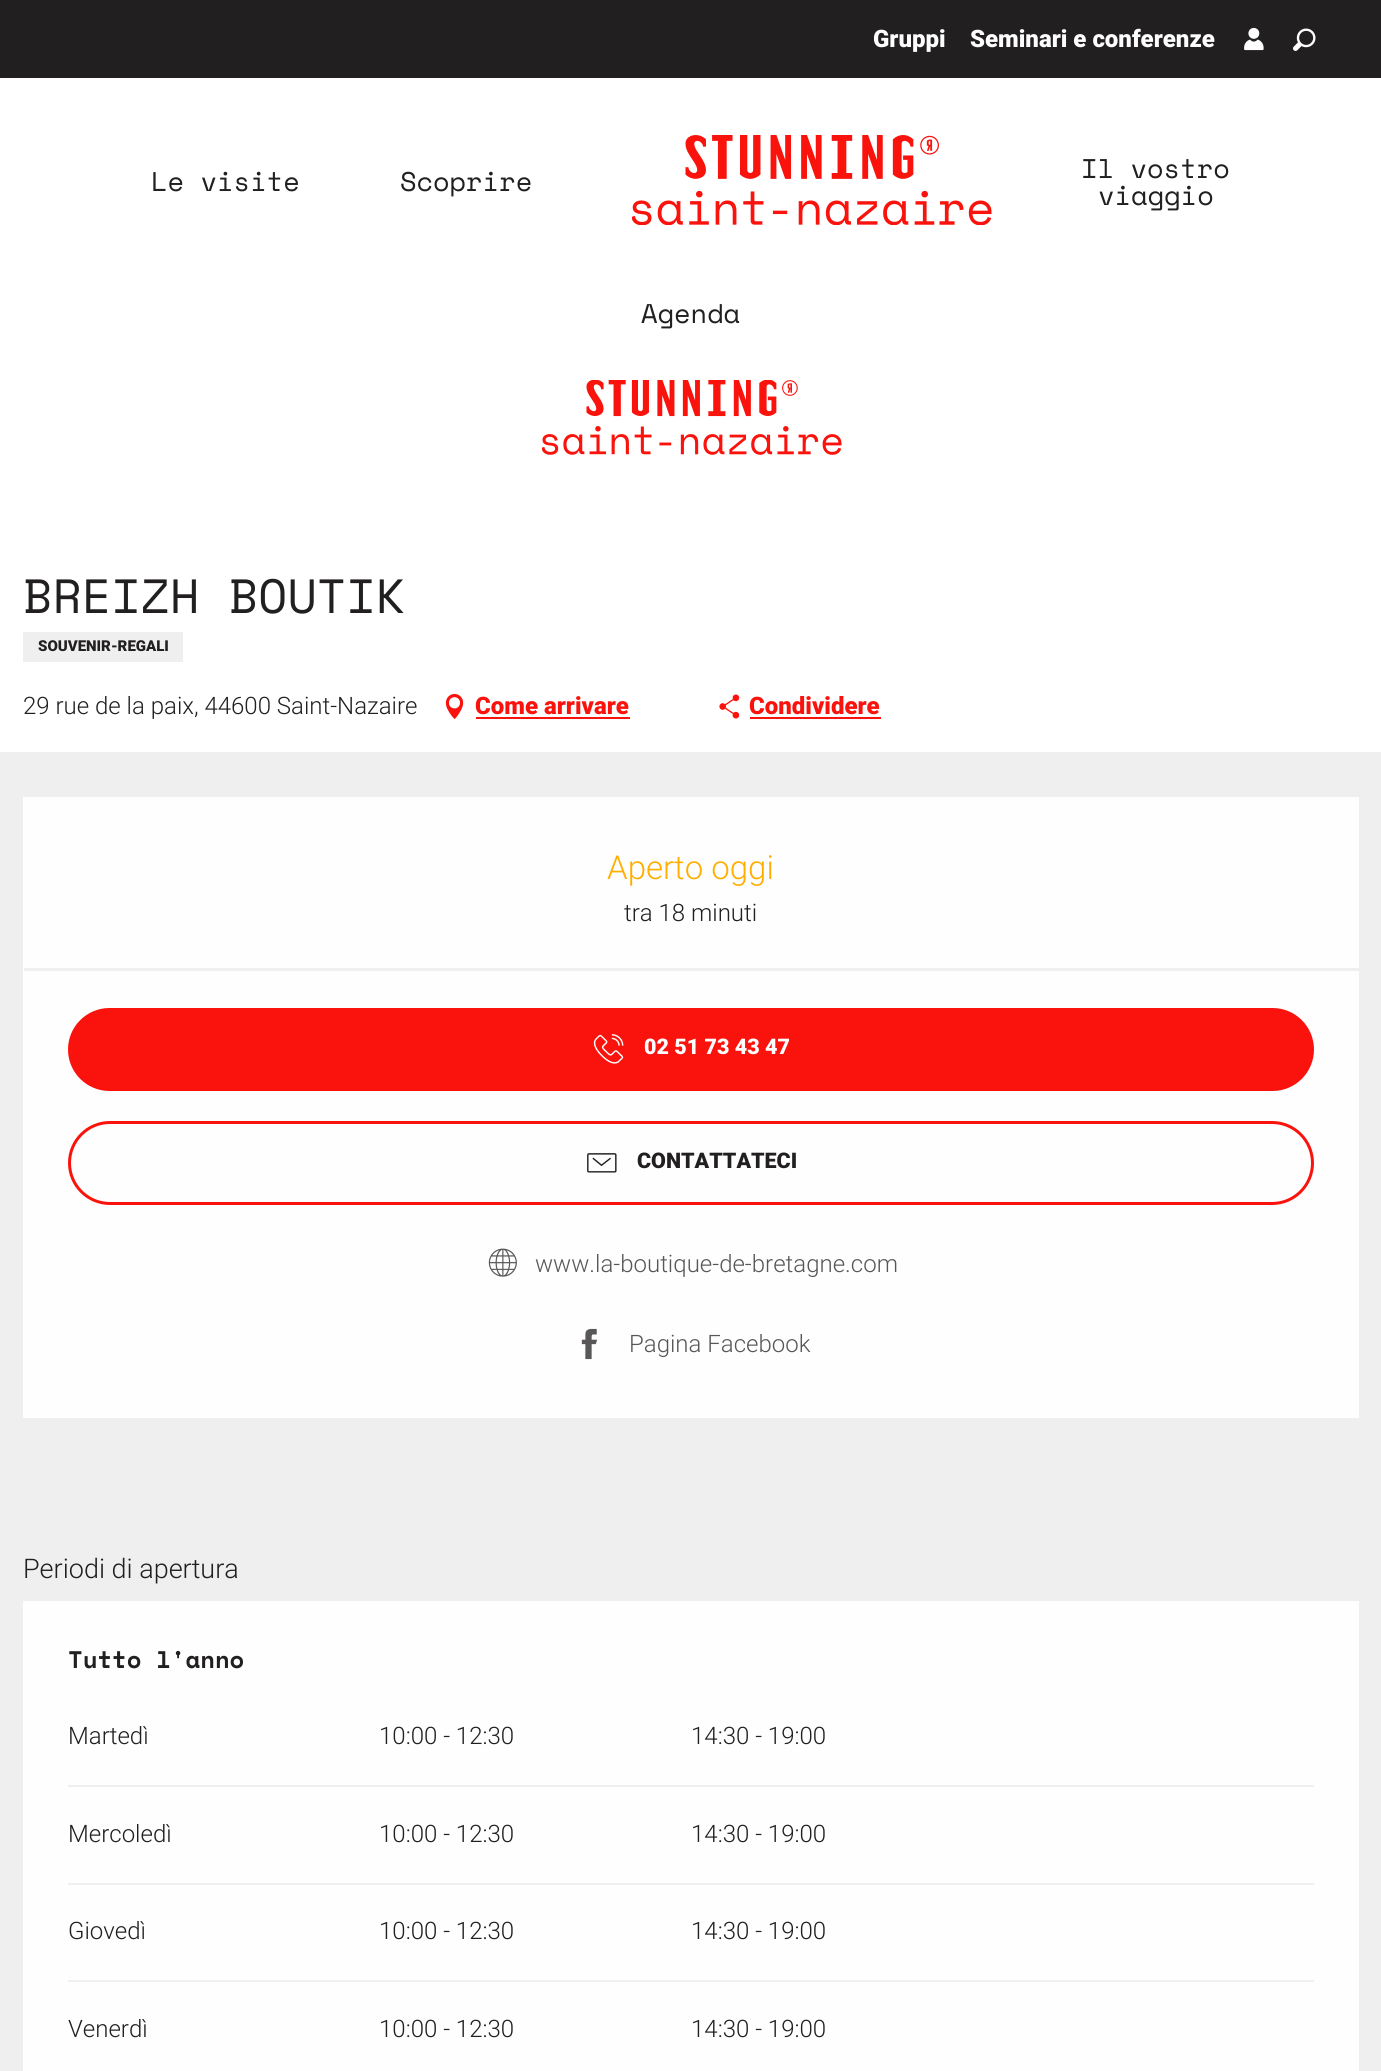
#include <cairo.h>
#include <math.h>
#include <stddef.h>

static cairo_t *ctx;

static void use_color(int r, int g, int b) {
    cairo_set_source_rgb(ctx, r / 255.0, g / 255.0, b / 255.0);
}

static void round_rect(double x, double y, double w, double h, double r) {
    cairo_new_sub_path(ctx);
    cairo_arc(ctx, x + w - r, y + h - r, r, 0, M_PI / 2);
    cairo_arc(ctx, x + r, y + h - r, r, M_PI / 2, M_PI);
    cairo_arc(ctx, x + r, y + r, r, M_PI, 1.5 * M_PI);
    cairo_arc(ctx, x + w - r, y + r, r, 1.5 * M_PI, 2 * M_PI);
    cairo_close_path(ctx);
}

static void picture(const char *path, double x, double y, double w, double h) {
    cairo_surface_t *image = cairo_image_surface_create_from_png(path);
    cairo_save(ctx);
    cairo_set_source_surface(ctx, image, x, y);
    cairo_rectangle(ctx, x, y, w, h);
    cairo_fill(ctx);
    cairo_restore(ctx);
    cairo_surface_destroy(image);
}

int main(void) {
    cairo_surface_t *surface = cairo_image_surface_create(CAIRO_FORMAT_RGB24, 1381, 2071);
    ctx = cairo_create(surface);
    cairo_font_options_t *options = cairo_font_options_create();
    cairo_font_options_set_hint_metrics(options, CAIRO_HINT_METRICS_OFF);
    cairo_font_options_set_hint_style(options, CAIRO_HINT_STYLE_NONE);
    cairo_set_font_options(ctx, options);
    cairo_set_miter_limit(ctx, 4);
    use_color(255, 255, 255);
    cairo_paint(ctx);
    use_color(33, 31, 31);
    cairo_rectangle(ctx, 0, 0, 1381, 78);
    cairo_fill(ctx);
    cairo_select_font_face(ctx, "Roboto Black", CAIRO_FONT_SLANT_NORMAL, CAIRO_FONT_WEIGHT_NORMAL);
    cairo_set_font_size(ctx, 24);
    use_color(254, 254, 254);
    cairo_move_to(ctx, 873, 47);
    cairo_show_text(ctx, "Gruppi");
    cairo_move_to(ctx, 970, 47);
    cairo_show_text(ctx, "Seminari e conferenze");
    picture("img1.png", 1244, 27, 20, 24);
    picture("img2.png", 1293, 28, 23, 23);
    cairo_select_font_face(ctx, "Space Mono", CAIRO_FONT_SLANT_NORMAL, CAIRO_FONT_WEIGHT_NORMAL);
    cairo_set_font_size(ctx, 27);
    use_color(33, 31, 31);
    cairo_move_to(ctx, 151, 191);
    cairo_show_text(ctx, "Le visite");
    cairo_move_to(ctx, 400, 191);
    cairo_show_text(ctx, "Scoprire");
    picture("img3.png", 632, 135, 360, 90);
    cairo_move_to(ctx, 1081, 178);
    cairo_show_text(ctx, "Il vostro");
    cairo_move_to(ctx, 1098, 205);
    cairo_show_text(ctx, "viaggio");
    cairo_move_to(ctx, 641, 323);
    cairo_show_text(ctx, "Agenda");
    picture("img4.png", 542, 380, 300, 75);
    cairo_set_font_size(ctx, 48);
    cairo_move_to(ctx, 23, 613);
    cairo_show_text(ctx, "BREIZH BOUTIK");
    use_color(239, 239, 239);
    cairo_rectangle(ctx, 23, 632, 160, 30);
    cairo_fill(ctx);
    cairo_select_font_face(ctx, "Roboto Black", CAIRO_FONT_SLANT_NORMAL, CAIRO_FONT_WEIGHT_NORMAL);
    cairo_set_font_size(ctx, 15);
    use_color(33, 31, 31);
    cairo_move_to(ctx, 38, 651);
    cairo_show_text(ctx, "SOUVENIR-REGALI");
    cairo_select_font_face(ctx, "Roboto Light", CAIRO_FONT_SLANT_NORMAL, CAIRO_FONT_WEIGHT_NORMAL);
    cairo_set_font_size(ctx, 24);
    cairo_move_to(ctx, 23, 714);
    cairo_show_text(ctx, "29 rue de la paix, 44600 Saint-Nazaire");
    picture("img5.png", 445, 694, 19, 25);
    cairo_select_font_face(ctx, "Roboto Black", CAIRO_FONT_SLANT_NORMAL, CAIRO_FONT_WEIGHT_NORMAL);
    use_color(250, 19, 12);
    cairo_move_to(ctx, 475, 714);
    cairo_show_text(ctx, "Come arrivare");
    cairo_rectangle(ctx, 476, 717, 154, 2);
    cairo_fill(ctx);
    picture("img6.png", 719, 694, 21, 25);
    cairo_move_to(ctx, 749, 714);
    cairo_show_text(ctx, "Condividere");
    cairo_rectangle(ctx, 750, 717, 131, 2);
    cairo_fill(ctx);
    use_color(239, 239, 239);
    cairo_rectangle(ctx, 0, 752, 1381, 1319);
    cairo_fill(ctx);
    use_color(254, 254, 254);
    cairo_rectangle(ctx, 23, 797, 1336, 621);
    cairo_fill(ctx);
    cairo_select_font_face(ctx, "Roboto Light", CAIRO_FONT_SLANT_NORMAL, CAIRO_FONT_WEIGHT_NORMAL);
    cairo_set_font_size(ctx, 33);
    use_color(255, 174, 0);
    cairo_move_to(ctx, 607, 879);
    cairo_show_text(ctx, "Aperto oggi");
    cairo_set_font_size(ctx, 24);
    use_color(33, 31, 31);
    cairo_move_to(ctx, 624, 921);
    cairo_show_text(ctx, "tra 18 minuti");
    use_color(239, 239, 239);
    cairo_rectangle(ctx, 24, 968, 1337, 3);
    cairo_fill(ctx);
    use_color(250, 19, 12);
    round_rect(68, 1008, 1246, 83, 41.5);
    cairo_fill(ctx);
    picture("img7.png", 593, 1034, 31, 30);
    cairo_select_font_face(ctx, "Roboto Black", CAIRO_FONT_SLANT_NORMAL, CAIRO_FONT_WEIGHT_NORMAL);
    cairo_set_font_size(ctx, 21.5);
    use_color(254, 254, 254);
    cairo_move_to(ctx, 644, 1054);
    cairo_show_text(ctx, "02 51 73 43 47");
    round_rect(69.5, 1122.5, 1243, 81, 40.5);
    use_color(250, 19, 12);
    cairo_set_line_width(ctx, 3);
    cairo_stroke(ctx);
    picture("img8.png", 587, 1153, 30, 20);
    use_color(33, 31, 31);
    cairo_move_to(ctx, 637, 1168);
    cairo_show_text(ctx, "CONTATTATECI");
    picture("img9.png", 488, 1248, 29, 29);
    cairo_select_font_face(ctx, "Roboto Light", CAIRO_FONT_SLANT_NORMAL, CAIRO_FONT_WEIGHT_NORMAL);
    cairo_set_font_size(ctx, 24);
    use_color(88, 87, 87);
    cairo_move_to(ctx, 535, 1272);
    cairo_show_text(ctx, "www.la-boutique-de-bretagne.com");
    picture("img10.png", 581, 1328, 16, 32);
    cairo_move_to(ctx, 629, 1352);
    cairo_show_text(ctx, "Pagina Facebook");
    cairo_set_font_size(ctx, 27);
    use_color(33, 31, 31);
    cairo_move_to(ctx, 23, 1578);
    cairo_show_text(ctx, "Periodi di apertura");
    use_color(254, 254, 254);
    cairo_rectangle(ctx, 23, 1601, 1336, 470);
    cairo_fill(ctx);
    cairo_select_font_face(ctx, "Space Mono", CAIRO_FONT_SLANT_NORMAL, CAIRO_FONT_WEIGHT_BOLD);
    cairo_set_font_size(ctx, 24);
    use_color(33, 31, 31);
    cairo_move_to(ctx, 68, 1668);
    cairo_show_text(ctx, "Tutto l'anno");
    cairo_select_font_face(ctx, "Roboto Light", CAIRO_FONT_SLANT_NORMAL, CAIRO_FONT_WEIGHT_NORMAL);
    cairo_move_to(ctx, 68, 1744);
    cairo_show_text(ctx, "Martedì");
    cairo_move_to(ctx, 379, 1744);
    cairo_show_text(ctx, "10:00 - 12:30");
    cairo_move_to(ctx, 691, 1744);
    cairo_show_text(ctx, "14:30 - 19:00");
    use_color(240, 240, 240);
    cairo_rectangle(ctx, 68, 1785, 1246, 2);
    cairo_fill(ctx);
    use_color(33, 31, 31);
    cairo_move_to(ctx, 68, 1842);
    cairo_show_text(ctx, "Mercoledì");
    cairo_move_to(ctx, 379, 1842);
    cairo_show_text(ctx, "10:00 - 12:30");
    cairo_move_to(ctx, 691, 1842);
    cairo_show_text(ctx, "14:30 - 19:00");
    use_color(240, 240, 240);
    cairo_rectangle(ctx, 68, 1883, 1246, 2);
    cairo_fill(ctx);
    use_color(33, 31, 31);
    cairo_move_to(ctx, 68, 1939);
    cairo_show_text(ctx, "Giovedì");
    cairo_move_to(ctx, 379, 1939);
    cairo_show_text(ctx, "10:00 - 12:30");
    cairo_move_to(ctx, 691, 1939);
    cairo_show_text(ctx, "14:30 - 19:00");
    use_color(240, 240, 240);
    cairo_rectangle(ctx, 68, 1980, 1246, 2);
    cairo_fill(ctx);
    use_color(33, 31, 31);
    cairo_move_to(ctx, 68, 2037);
    cairo_show_text(ctx, "Venerdì");
    cairo_move_to(ctx, 379, 2037);
    cairo_show_text(ctx, "10:00 - 12:30");
    cairo_move_to(ctx, 691, 2037);
    cairo_show_text(ctx, "14:30 - 19:00");
    cairo_surface_write_to_png(surface, "result.png");
    cairo_font_options_destroy(options);
    cairo_destroy(ctx);
    cairo_surface_destroy(surface);
    return 0;
}
